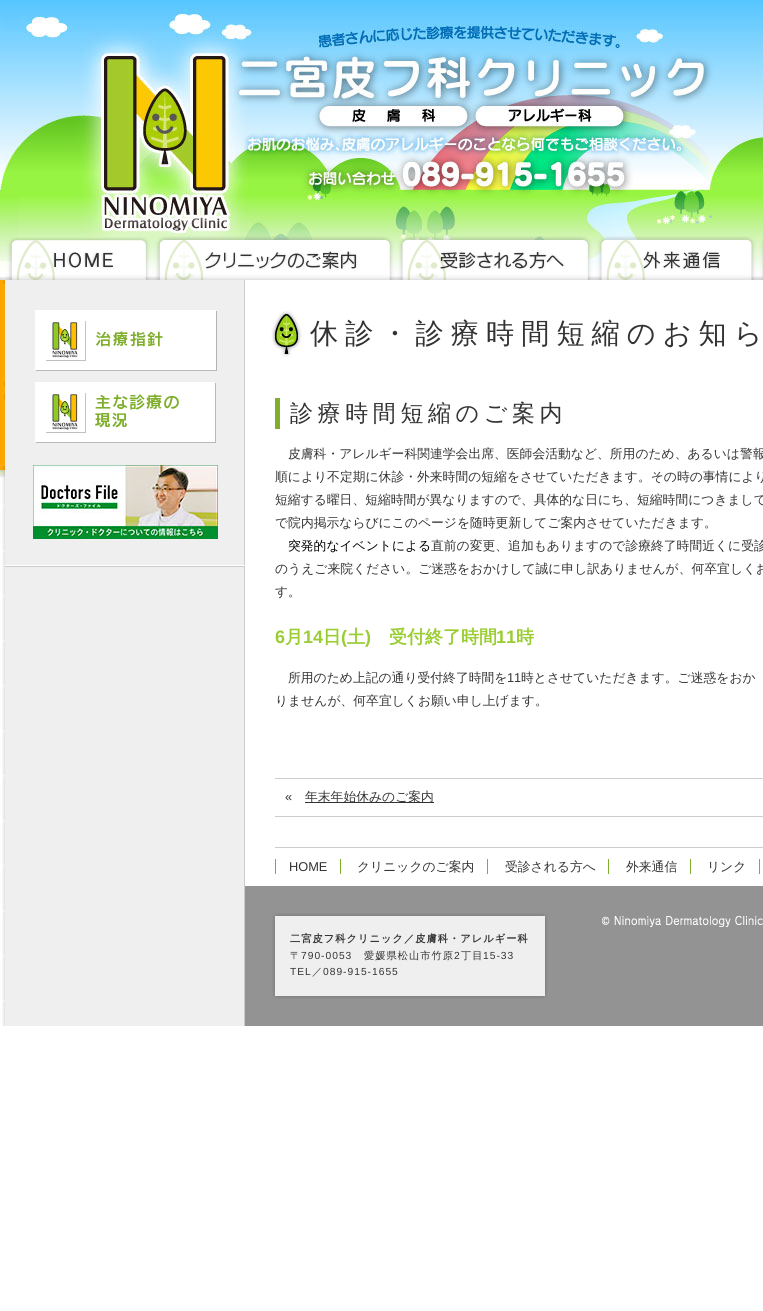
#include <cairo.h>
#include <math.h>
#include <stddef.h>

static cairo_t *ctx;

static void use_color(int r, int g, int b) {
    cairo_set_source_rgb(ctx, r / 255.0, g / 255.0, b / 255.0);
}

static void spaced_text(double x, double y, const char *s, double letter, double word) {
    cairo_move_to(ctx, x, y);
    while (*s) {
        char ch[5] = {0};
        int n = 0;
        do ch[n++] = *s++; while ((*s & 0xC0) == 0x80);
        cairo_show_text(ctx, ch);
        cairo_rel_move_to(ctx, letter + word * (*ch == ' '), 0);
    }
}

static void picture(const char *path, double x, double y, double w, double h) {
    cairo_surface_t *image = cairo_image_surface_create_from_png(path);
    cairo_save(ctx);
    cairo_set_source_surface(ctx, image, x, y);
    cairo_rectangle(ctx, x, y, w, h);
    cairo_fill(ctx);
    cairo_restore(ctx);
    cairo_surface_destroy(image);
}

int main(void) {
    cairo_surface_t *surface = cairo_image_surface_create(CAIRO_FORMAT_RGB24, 763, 1311);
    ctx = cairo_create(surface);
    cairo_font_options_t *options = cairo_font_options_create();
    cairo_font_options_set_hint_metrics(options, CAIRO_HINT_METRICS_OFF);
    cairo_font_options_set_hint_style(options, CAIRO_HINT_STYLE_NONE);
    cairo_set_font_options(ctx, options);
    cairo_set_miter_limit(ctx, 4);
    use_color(255, 255, 255);
    cairo_paint(ctx);
    picture("img1.png", 0, 0, 763, 8);
    picture("img2.png", 0, 8, 763, 266);
    use_color(240, 240, 240);
    cairo_rectangle(ctx, 0, 277, 763, 3);
    cairo_fill(ctx);
    picture("img3.png", 5, 237, 148, 43);
    picture("img4.png", 153, 236, 243, 44);
    picture("img5.png", 396, 236, 199, 44);
    picture("img6.png", 595, 236, 163, 44);
    picture("img7.png", 758, 240, 5, 40);
    picture("img8.png", 2, 280, 243, 746);
    picture("img9.png", 5, 565, 240, 2);
    picture("img10.png", 0, 277, 5, 201);
    picture("img11.png", 35, 310, 182, 61);
    picture("img12.png", 35, 382, 181, 61);
    picture("img13.png", 33, 465, 185, 74);
    picture("img14.png", 271, 311, 31, 46);
    cairo_select_font_face(ctx, "WenQuanYi Zen Hei Medium", CAIRO_FONT_SLANT_NORMAL, CAIRO_FONT_WEIGHT_NORMAL);
    cairo_set_font_size(ctx, 28.2);
    use_color(51, 51, 51);
    spaced_text(310, 343, "休診・診療時間短縮のお知ら", 7, 0);
    use_color(128, 175, 45);
    cairo_rectangle(ctx, 275, 398, 5, 31);
    cairo_fill(ctx);
    cairo_set_font_size(ctx, 23);
    use_color(51, 51, 51);
    spaced_text(290, 421, "診療時間短縮のご案内", 4.6, 0);
    cairo_set_font_size(ctx, 12.8);
    cairo_move_to(ctx, 288, 458);
    cairo_show_text(ctx, "皮膚科・アレルギー科関連学会出席、医師会活動など、所用のため、あるいは警報");
    cairo_move_to(ctx, 275, 481);
    cairo_show_text(ctx, "順により不定期に休診・外来時間の短縮をさせていただきます。その時の事情により");
    cairo_move_to(ctx, 275, 504);
    cairo_show_text(ctx, "短縮する曜日、短縮時間が異なりますので、具体的な日にち、短縮時間につきまして");
    cairo_move_to(ctx, 275, 527);
    cairo_show_text(ctx, "で院内掲示ならびにこのページを随時更新してご案内させていただきます。");
    use_color(0, 0, 0);
    cairo_move_to(ctx, 288, 550);
    cairo_show_text(ctx, "突発的なイベントによる");
    use_color(51, 51, 51);
    cairo_move_to(ctx, 431, 550);
    cairo_show_text(ctx, "直前の変更、追加もありますので診療終了時間近くに受診");
    cairo_move_to(ctx, 275, 573);
    cairo_show_text(ctx, "のうえご来院ください。ご迷惑をおかけして誠に申し訳ありませんが、何卒宜しくお");
    cairo_move_to(ctx, 275, 596);
    cairo_show_text(ctx, "す。");
    cairo_select_font_face(ctx, "Liberation Sans", CAIRO_FONT_SLANT_NORMAL, CAIRO_FONT_WEIGHT_BOLD);
    cairo_set_font_size(ctx, 18);
    use_color(154, 205, 50);
    cairo_move_to(ctx, 275, 643);
    cairo_show_text(ctx, "6");
    cairo_select_font_face(ctx, "WenQuanYi Zen Hei", CAIRO_FONT_SLANT_NORMAL, CAIRO_FONT_WEIGHT_BOLD);
    cairo_move_to(ctx, 285, 643);
    cairo_show_text(ctx, "月");
    cairo_select_font_face(ctx, "Liberation Sans", CAIRO_FONT_SLANT_NORMAL, CAIRO_FONT_WEIGHT_BOLD);
    cairo_move_to(ctx, 303, 643);
    cairo_show_text(ctx, "14");
    cairo_select_font_face(ctx, "WenQuanYi Zen Hei", CAIRO_FONT_SLANT_NORMAL, CAIRO_FONT_WEIGHT_BOLD);
    cairo_move_to(ctx, 323, 643);
    cairo_show_text(ctx, "日");
    cairo_select_font_face(ctx, "Liberation Sans", CAIRO_FONT_SLANT_NORMAL, CAIRO_FONT_WEIGHT_BOLD);
    cairo_move_to(ctx, 341, 643);
    cairo_show_text(ctx, "(");
    cairo_select_font_face(ctx, "WenQuanYi Zen Hei", CAIRO_FONT_SLANT_NORMAL, CAIRO_FONT_WEIGHT_BOLD);
    cairo_move_to(ctx, 347, 643);
    cairo_show_text(ctx, "土");
    cairo_select_font_face(ctx, "Liberation Sans", CAIRO_FONT_SLANT_NORMAL, CAIRO_FONT_WEIGHT_BOLD);
    cairo_move_to(ctx, 365, 643);
    cairo_show_text(ctx, ")");
    cairo_select_font_face(ctx, "WenQuanYi Zen Hei", CAIRO_FONT_SLANT_NORMAL, CAIRO_FONT_WEIGHT_BOLD);
    cairo_move_to(ctx, 389, 643);
    cairo_show_text(ctx, "受付終了時間");
    cairo_select_font_face(ctx, "Liberation Sans", CAIRO_FONT_SLANT_NORMAL, CAIRO_FONT_WEIGHT_BOLD);
    cairo_move_to(ctx, 496, 643);
    cairo_show_text(ctx, "11");
    cairo_select_font_face(ctx, "WenQuanYi Zen Hei", CAIRO_FONT_SLANT_NORMAL, CAIRO_FONT_WEIGHT_BOLD);
    cairo_move_to(ctx, 516, 643);
    cairo_show_text(ctx, "時");
    cairo_select_font_face(ctx, "WenQuanYi Zen Hei Medium", CAIRO_FONT_SLANT_NORMAL, CAIRO_FONT_WEIGHT_NORMAL);
    cairo_set_font_size(ctx, 12.8);
    use_color(51, 51, 51);
    cairo_move_to(ctx, 288, 682);
    cairo_show_text(ctx, "所用のため上記の通り受付終了時間を");
    cairo_select_font_face(ctx, "Liberation Sans", CAIRO_FONT_SLANT_NORMAL, CAIRO_FONT_WEIGHT_NORMAL);
    cairo_move_to(ctx, 507, 682);
    cairo_show_text(ctx, "11");
    cairo_select_font_face(ctx, "WenQuanYi Zen Hei Medium", CAIRO_FONT_SLANT_NORMAL, CAIRO_FONT_WEIGHT_NORMAL);
    cairo_move_to(ctx, 521, 682);
    cairo_show_text(ctx, "時とさせていただきます。ご迷惑をおか");
    cairo_move_to(ctx, 275, 705);
    cairo_show_text(ctx, "りませんが、何卒宜しくお願い申し上げます。");
    use_color(204, 204, 204);
    cairo_rectangle(ctx, 275, 778, 488, 1);
    cairo_fill(ctx);
    cairo_rectangle(ctx, 275, 816, 488, 1);
    cairo_fill(ctx);
    cairo_select_font_face(ctx, "Liberation Sans", CAIRO_FONT_SLANT_NORMAL, CAIRO_FONT_WEIGHT_NORMAL);
    use_color(51, 51, 51);
    cairo_move_to(ctx, 285, 801);
    cairo_show_text(ctx, "«");
    cairo_rectangle(ctx, 305, 802, 129, 1);
    cairo_fill(ctx);
    cairo_select_font_face(ctx, "WenQuanYi Zen Hei Medium", CAIRO_FONT_SLANT_NORMAL, CAIRO_FONT_WEIGHT_NORMAL);
    cairo_move_to(ctx, 305, 801);
    cairo_show_text(ctx, "年末年始休みのご案内");
    use_color(204, 204, 204);
    cairo_rectangle(ctx, 275, 847, 488, 1);
    cairo_fill(ctx);
    cairo_select_font_face(ctx, "Liberation Sans", CAIRO_FONT_SLANT_NORMAL, CAIRO_FONT_WEIGHT_NORMAL);
    use_color(51, 51, 51);
    cairo_move_to(ctx, 289, 871);
    cairo_show_text(ctx, "HOME");
    use_color(128, 175, 45);
    cairo_rectangle(ctx, 340, 859, 1, 15);
    cairo_fill(ctx);
    cairo_rectangle(ctx, 275, 859, 1, 15);
    cairo_fill(ctx);
    cairo_select_font_face(ctx, "WenQuanYi Zen Hei Medium", CAIRO_FONT_SLANT_NORMAL, CAIRO_FONT_WEIGHT_NORMAL);
    use_color(51, 51, 51);
    cairo_move_to(ctx, 357, 871);
    cairo_show_text(ctx, "クリニックのご案内");
    use_color(128, 175, 45);
    cairo_rectangle(ctx, 487, 859, 1, 15);
    cairo_fill(ctx);
    use_color(51, 51, 51);
    cairo_move_to(ctx, 505, 871);
    cairo_show_text(ctx, "受診される方へ");
    use_color(128, 175, 45);
    cairo_rectangle(ctx, 608, 859, 1, 15);
    cairo_fill(ctx);
    use_color(51, 51, 51);
    cairo_move_to(ctx, 626, 871);
    cairo_show_text(ctx, "外来通信");
    use_color(128, 175, 45);
    cairo_rectangle(ctx, 690, 859, 1, 15);
    cairo_fill(ctx);
    use_color(51, 51, 51);
    cairo_move_to(ctx, 707, 871);
    cairo_show_text(ctx, "リンク");
    use_color(128, 175, 45);
    cairo_rectangle(ctx, 759, 859, 1, 15);
    cairo_fill(ctx);
    use_color(147, 147, 147);
    cairo_rectangle(ctx, 245, 886, 518, 140);
    cairo_fill(ctx);
    picture("img15.png", 602, 916, 161, 11);
    picture("img16.png", 272, 913, 276, 86);
    cairo_select_font_face(ctx, "WenQuanYi Zen Hei", CAIRO_FONT_SLANT_NORMAL, CAIRO_FONT_WEIGHT_BOLD);
    cairo_set_font_size(ctx, 10.25);
    use_color(51, 51, 51);
    spaced_text(290, 942, "二宮皮フ科クリニック／皮膚科・アレルギー科", 1, 0);
    cairo_select_font_face(ctx, "WenQuanYi Zen Hei Medium", CAIRO_FONT_SLANT_NORMAL, CAIRO_FONT_WEIGHT_NORMAL);
    spaced_text(290, 959, "〒", 1, 0);
    cairo_select_font_face(ctx, "Liberation Sans", CAIRO_FONT_SLANT_NORMAL, CAIRO_FONT_WEIGHT_NORMAL);
    spaced_text(301, 959, "790-0053", 1, 0);
    cairo_select_font_face(ctx, "WenQuanYi Zen Hei Medium", CAIRO_FONT_SLANT_NORMAL, CAIRO_FONT_WEIGHT_NORMAL);
    spaced_text(364, 959, "愛媛県松山市竹原", 1, 0);
    cairo_select_font_face(ctx, "Liberation Sans", CAIRO_FONT_SLANT_NORMAL, CAIRO_FONT_WEIGHT_NORMAL);
    spaced_text(454, 959, "2", 1, 0);
    cairo_select_font_face(ctx, "WenQuanYi Zen Hei Medium", CAIRO_FONT_SLANT_NORMAL, CAIRO_FONT_WEIGHT_NORMAL);
    spaced_text(461, 959, "丁目", 1, 0);
    cairo_select_font_face(ctx, "Liberation Sans", CAIRO_FONT_SLANT_NORMAL, CAIRO_FONT_WEIGHT_NORMAL);
    spaced_text(483, 959, "15-33", 1, 0);
    spaced_text(290, 975, "TEL", 1, 0);
    cairo_select_font_face(ctx, "WenQuanYi Zen Hei Medium", CAIRO_FONT_SLANT_NORMAL, CAIRO_FONT_WEIGHT_NORMAL);
    spaced_text(312, 975, "／", 1, 0);
    cairo_select_font_face(ctx, "Liberation Sans", CAIRO_FONT_SLANT_NORMAL, CAIRO_FONT_WEIGHT_NORMAL);
    spaced_text(323, 975, "089-915-1655", 1, 0);
    cairo_surface_write_to_png(surface, "result.png");
    cairo_font_options_destroy(options);
    cairo_destroy(ctx);
    cairo_surface_destroy(surface);
    return 0;
}
